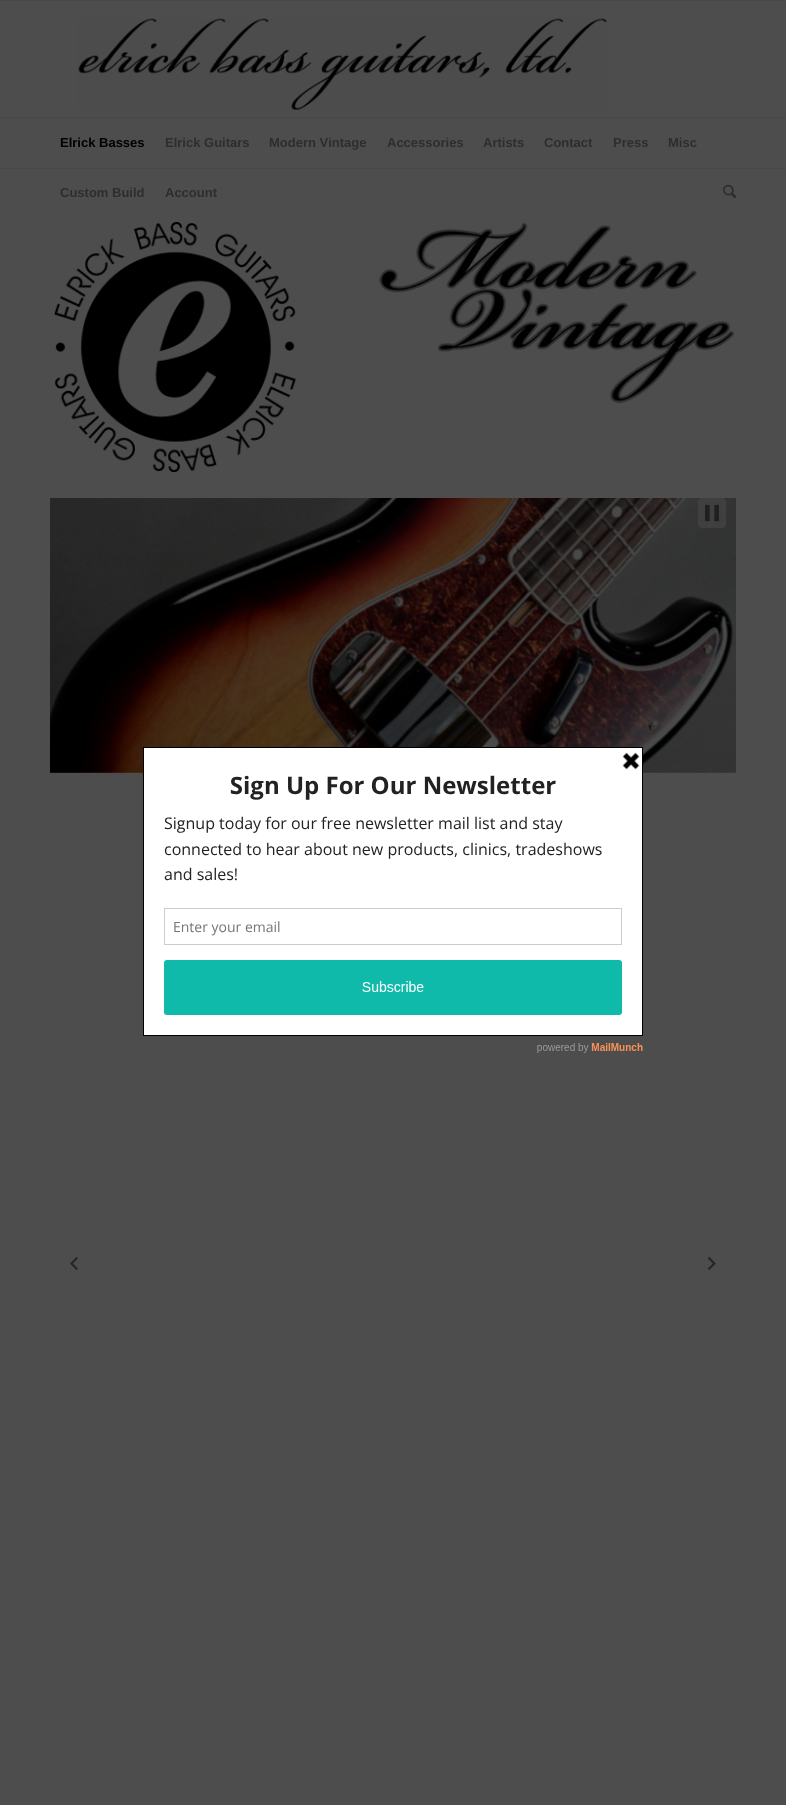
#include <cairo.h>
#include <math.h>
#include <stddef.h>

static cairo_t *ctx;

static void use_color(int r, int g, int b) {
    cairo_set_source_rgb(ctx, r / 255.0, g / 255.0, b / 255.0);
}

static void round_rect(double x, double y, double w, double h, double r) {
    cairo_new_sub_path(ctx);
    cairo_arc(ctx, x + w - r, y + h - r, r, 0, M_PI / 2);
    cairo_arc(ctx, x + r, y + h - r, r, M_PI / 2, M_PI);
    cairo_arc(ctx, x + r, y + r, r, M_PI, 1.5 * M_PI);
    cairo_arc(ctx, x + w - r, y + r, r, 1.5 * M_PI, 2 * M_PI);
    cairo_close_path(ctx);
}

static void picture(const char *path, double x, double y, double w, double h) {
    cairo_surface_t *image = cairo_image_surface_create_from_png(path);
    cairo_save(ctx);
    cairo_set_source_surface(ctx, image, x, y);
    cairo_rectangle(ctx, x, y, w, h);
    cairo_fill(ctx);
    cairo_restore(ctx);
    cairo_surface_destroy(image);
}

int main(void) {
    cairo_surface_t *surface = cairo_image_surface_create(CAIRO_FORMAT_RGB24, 786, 1805);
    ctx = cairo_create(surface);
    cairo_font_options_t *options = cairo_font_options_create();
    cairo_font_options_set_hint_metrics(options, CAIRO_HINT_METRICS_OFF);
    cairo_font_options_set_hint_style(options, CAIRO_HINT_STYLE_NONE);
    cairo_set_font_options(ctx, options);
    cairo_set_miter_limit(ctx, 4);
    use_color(77, 77, 77);
    cairo_paint(ctx);
    use_color(71, 71, 71);
    cairo_rectangle(ctx, 0, 0, 786, 1);
    cairo_fill(ctx);
    cairo_rectangle(ctx, 0, 168, 786, 1);
    cairo_fill(ctx);
    picture("img1.png", 78, 18, 529, 93);
    cairo_rectangle(ctx, 0, 117, 786, 1);
    cairo_fill(ctx);
    cairo_select_font_face(ctx, "Liberation Sans", CAIRO_FONT_SLANT_NORMAL, CAIRO_FONT_WEIGHT_BOLD);
    cairo_set_font_size(ctx, 13);
    use_color(0, 0, 0);
    cairo_move_to(ctx, 60, 147);
    cairo_show_text(ctx, "Elrick Basses");
    use_color(45, 45, 45);
    cairo_move_to(ctx, 165, 147);
    cairo_show_text(ctx, "Elrick Guitars");
    cairo_move_to(ctx, 269, 147);
    cairo_show_text(ctx, "Modern Vintage");
    cairo_move_to(ctx, 387, 147);
    cairo_show_text(ctx, "Accessories");
    cairo_move_to(ctx, 483, 147);
    cairo_show_text(ctx, "Artists");
    cairo_move_to(ctx, 544, 147);
    cairo_show_text(ctx, "Contact");
    cairo_move_to(ctx, 613, 147);
    cairo_show_text(ctx, "Press");
    cairo_move_to(ctx, 668, 147);
    cairo_show_text(ctx, "Misc");
    cairo_move_to(ctx, 60, 197);
    cairo_show_text(ctx, "Custom Build");
    cairo_move_to(ctx, 165, 197);
    cairo_show_text(ctx, "Account");
    picture("img2.png", 723, 184, 13, 15);
    picture("img3.png", 54, 222, 243, 250);
    picture("img4.png", 378, 222, 357, 182);
    picture("img5.png", 50, 498, 686, 275);
    cairo_set_source_rgba(ctx, 0.302, 0.302, 0.302, 0.5);
    round_rect(698, 498, 28, 30, 4);
    cairo_fill(ctx);
    picture("img6.png", 705, 504, 14, 18);
    picture("img7.png", 70, 1257, 8, 13);
    picture("img8.png", 707, 1257, 9, 13);
    picture("img9.png", 143, 747, 500, 306);
    cairo_surface_write_to_png(surface, "result.png");
    cairo_font_options_destroy(options);
    cairo_destroy(ctx);
    cairo_surface_destroy(surface);
    return 0;
}
